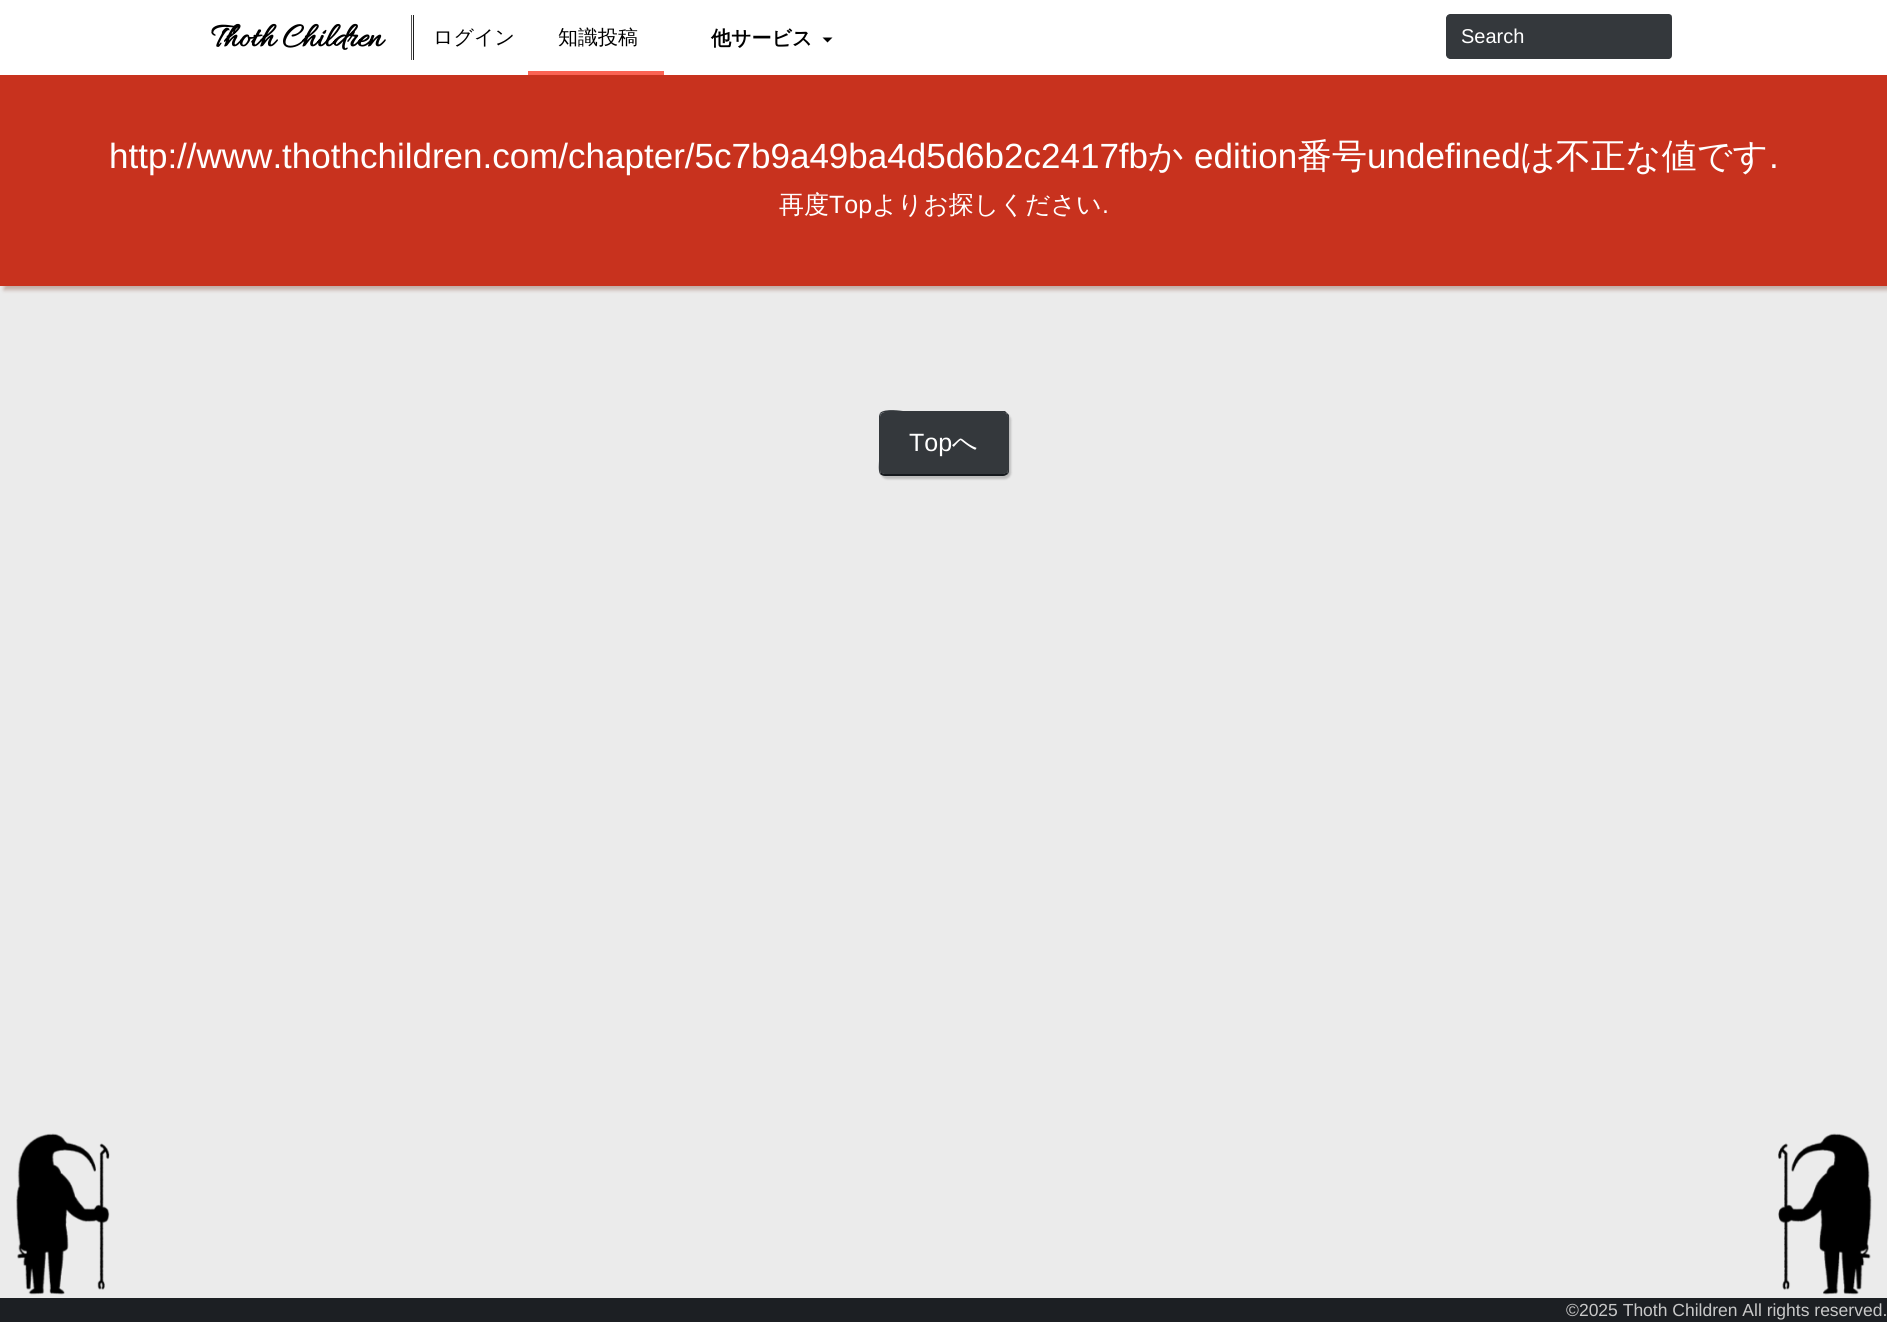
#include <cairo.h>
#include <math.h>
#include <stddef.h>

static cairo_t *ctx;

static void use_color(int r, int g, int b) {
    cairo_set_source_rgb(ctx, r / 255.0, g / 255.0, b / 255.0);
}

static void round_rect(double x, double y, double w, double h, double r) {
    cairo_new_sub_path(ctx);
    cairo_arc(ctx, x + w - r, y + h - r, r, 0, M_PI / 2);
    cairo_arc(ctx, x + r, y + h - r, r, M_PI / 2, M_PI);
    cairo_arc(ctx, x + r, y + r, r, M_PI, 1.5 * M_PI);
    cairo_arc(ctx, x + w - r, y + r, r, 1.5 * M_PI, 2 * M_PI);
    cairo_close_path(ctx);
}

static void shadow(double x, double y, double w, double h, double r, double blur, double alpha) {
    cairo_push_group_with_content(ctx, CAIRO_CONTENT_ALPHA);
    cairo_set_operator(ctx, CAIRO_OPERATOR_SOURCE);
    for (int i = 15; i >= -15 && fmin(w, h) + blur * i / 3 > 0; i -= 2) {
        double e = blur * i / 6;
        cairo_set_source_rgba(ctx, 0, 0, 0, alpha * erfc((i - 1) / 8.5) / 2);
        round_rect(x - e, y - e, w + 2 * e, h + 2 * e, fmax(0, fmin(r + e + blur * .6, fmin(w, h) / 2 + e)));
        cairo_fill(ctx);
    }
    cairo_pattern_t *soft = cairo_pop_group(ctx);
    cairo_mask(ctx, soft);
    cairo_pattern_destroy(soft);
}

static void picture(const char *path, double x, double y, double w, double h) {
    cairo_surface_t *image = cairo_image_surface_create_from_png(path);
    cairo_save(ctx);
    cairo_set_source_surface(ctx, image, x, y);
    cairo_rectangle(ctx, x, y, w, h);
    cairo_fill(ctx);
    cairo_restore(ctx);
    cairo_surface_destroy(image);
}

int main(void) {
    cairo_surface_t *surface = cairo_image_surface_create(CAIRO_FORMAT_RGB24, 1887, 1322);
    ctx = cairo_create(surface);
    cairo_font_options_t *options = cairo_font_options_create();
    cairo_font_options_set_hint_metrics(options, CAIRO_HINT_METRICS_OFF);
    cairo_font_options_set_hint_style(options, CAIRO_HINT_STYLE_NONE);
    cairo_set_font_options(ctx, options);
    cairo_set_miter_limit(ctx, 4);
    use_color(235, 235, 235);
    cairo_paint(ctx);
    use_color(255, 255, 255);
    cairo_rectangle(ctx, 0, 0, 1887, 75);
    cairo_fill(ctx);
    cairo_select_font_face(ctx, "Allura", CAIRO_FONT_SLANT_NORMAL, CAIRO_FONT_WEIGHT_BOLD);
    cairo_set_font_size(ctx, 35);
    use_color(0, 0, 0);
    cairo_move_to(ctx, 211, 46);
    cairo_show_text(ctx, "Thoth Children");
    use_color(30, 30, 30);
    cairo_rectangle(ctx, 413, 15, 1, 45);
    cairo_fill(ctx);
    use_color(80, 80, 80);
    cairo_rectangle(ctx, 411, 15, 1, 45);
    cairo_fill(ctx);
    cairo_select_font_face(ctx, "WenQuanYi Zen Hei Medium", CAIRO_FONT_SLANT_NORMAL, CAIRO_FONT_WEIGHT_NORMAL);
    cairo_set_font_size(ctx, 20);
    use_color(0, 0, 0);
    cairo_move_to(ctx, 433, 44);
    cairo_show_text(ctx, "ログイン");
    use_color(100, 30, 10);
    shadow(4, 79, 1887, 211, 0, 2, 0.3);
    use_color(251, 99, 83);
    cairo_rectangle(ctx, 528, 71, 136, 4);
    cairo_fill(ctx);
    use_color(0, 0, 0);
    cairo_move_to(ctx, 558, 44);
    cairo_show_text(ctx, "知識投稿");
    cairo_select_font_face(ctx, "WenQuanYi Zen Hei", CAIRO_FONT_SLANT_NORMAL, CAIRO_FONT_WEIGHT_BOLD);
    cairo_move_to(ctx, 711, 45);
    cairo_show_text(ctx, "他サービス");
    cairo_new_path(ctx);
    cairo_move_to(ctx, 822.5, 37.5);
    cairo_line_to(ctx, 832.5, 37.5);
    cairo_line_to(ctx, 827.5, 42.5);
    cairo_close_path(ctx);
    cairo_fill(ctx);
    use_color(52, 56, 60);
    cairo_new_path(ctx);
    cairo_move_to(ctx, 1450, 14);
    cairo_line_to(ctx, 1633, 14);
    cairo_line_to(ctx, 1633, 59);
    cairo_line_to(ctx, 1450, 59);
    cairo_curve_to(ctx, 1448, 59, 1446, 57, 1446, 55);
    cairo_line_to(ctx, 1446, 18);
    cairo_curve_to(ctx, 1446, 16, 1448, 14, 1450, 14);
    cairo_close_path(ctx);
    cairo_fill(ctx);
    cairo_set_source_rgba(ctx, 1, 1, 1, 0.6);
    cairo_set_fill_rule(ctx, CAIRO_FILL_RULE_EVEN_ODD);
    cairo_new_path(ctx);
    cairo_move_to(ctx, 1450, 12);
    cairo_line_to(ctx, 1632, 12);
    cairo_line_to(ctx, 1632, 60);
    cairo_line_to(ctx, 1450, 60);
    cairo_curve_to(ctx, 1447, 60, 1445, 58, 1445, 55);
    cairo_line_to(ctx, 1445, 18);
    cairo_curve_to(ctx, 1445, 15, 1447, 12, 1450, 12);
    cairo_close_path(ctx);
    cairo_move_to(ctx, 1450, 14);
    cairo_line_to(ctx, 1632, 14);
    cairo_line_to(ctx, 1632, 59);
    cairo_line_to(ctx, 1450, 59);
    cairo_curve_to(ctx, 1448, 59, 1446, 57, 1446, 55);
    cairo_line_to(ctx, 1446, 18);
    cairo_curve_to(ctx, 1446, 15, 1448, 14, 1450, 14);
    cairo_close_path(ctx);
    cairo_fill(ctx);
    cairo_select_font_face(ctx, "Liberation Sans", CAIRO_FONT_SLANT_NORMAL, CAIRO_FONT_WEIGHT_NORMAL);
    use_color(255, 255, 255);
    cairo_move_to(ctx, 1461, 43);
    cairo_show_text(ctx, "Search");
    use_color(52, 56, 60);
    cairo_new_path(ctx);
    cairo_move_to(ctx, 1633, 14);
    cairo_line_to(ctx, 1669, 14);
    cairo_curve_to(ctx, 1671, 14, 1673, 16, 1673, 18);
    cairo_line_to(ctx, 1673, 55);
    cairo_curve_to(ctx, 1673, 57, 1671, 59, 1669, 59);
    cairo_line_to(ctx, 1633, 59);
    cairo_close_path(ctx);
    cairo_fill(ctx);
    use_color(255, 255, 255);
    cairo_new_path(ctx);
    cairo_move_to(ctx, 1632, 12);
    cairo_line_to(ctx, 1669, 12);
    cairo_curve_to(ctx, 1672, 12, 1674, 15, 1674, 18);
    cairo_line_to(ctx, 1674, 55);
    cairo_curve_to(ctx, 1674, 58, 1672, 60, 1669, 60);
    cairo_line_to(ctx, 1632, 60);
    cairo_close_path(ctx);
    cairo_move_to(ctx, 1632, 14);
    cairo_line_to(ctx, 1669, 14);
    cairo_curve_to(ctx, 1671, 14, 1672, 15, 1672, 18);
    cairo_line_to(ctx, 1672, 55);
    cairo_curve_to(ctx, 1672, 57, 1671, 59, 1669, 59);
    cairo_line_to(ctx, 1632, 59);
    cairo_close_path(ctx);
    cairo_fill(ctx);
    use_color(200, 50, 30);
    cairo_rectangle(ctx, 0, 75, 1887, 211);
    cairo_fill(ctx);
    cairo_set_font_size(ctx, 35);
    use_color(255, 255, 255);
    cairo_move_to(ctx, 109, 168);
    cairo_show_text(ctx, "http://www.thothchildren.com/chapter/5c7b9a49ba4d5d6b2c2417fb");
    cairo_select_font_face(ctx, "WenQuanYi Zen Hei Medium", CAIRO_FONT_SLANT_NORMAL, CAIRO_FONT_WEIGHT_NORMAL);
    cairo_move_to(ctx, 1148, 168);
    cairo_show_text(ctx, "か");
    cairo_select_font_face(ctx, "Liberation Sans", CAIRO_FONT_SLANT_NORMAL, CAIRO_FONT_WEIGHT_NORMAL);
    cairo_move_to(ctx, 1194, 168);
    cairo_show_text(ctx, "edition");
    cairo_select_font_face(ctx, "WenQuanYi Zen Hei Medium", CAIRO_FONT_SLANT_NORMAL, CAIRO_FONT_WEIGHT_NORMAL);
    cairo_move_to(ctx, 1297, 168);
    cairo_show_text(ctx, "番号");
    cairo_select_font_face(ctx, "Liberation Sans", CAIRO_FONT_SLANT_NORMAL, CAIRO_FONT_WEIGHT_NORMAL);
    cairo_move_to(ctx, 1367, 168);
    cairo_show_text(ctx, "undefined");
    cairo_select_font_face(ctx, "WenQuanYi Zen Hei Medium", CAIRO_FONT_SLANT_NORMAL, CAIRO_FONT_WEIGHT_NORMAL);
    cairo_move_to(ctx, 1520, 168);
    cairo_show_text(ctx, "は不正な値です");
    cairo_select_font_face(ctx, "Liberation Sans", CAIRO_FONT_SLANT_NORMAL, CAIRO_FONT_WEIGHT_NORMAL);
    cairo_move_to(ctx, 1769, 168);
    cairo_show_text(ctx, ".");
    cairo_select_font_face(ctx, "WenQuanYi Zen Hei Medium", CAIRO_FONT_SLANT_NORMAL, CAIRO_FONT_WEIGHT_NORMAL);
    cairo_set_font_size(ctx, 25);
    cairo_move_to(ctx, 779, 213);
    cairo_show_text(ctx, "再度");
    cairo_select_font_face(ctx, "Liberation Sans", CAIRO_FONT_SLANT_NORMAL, CAIRO_FONT_WEIGHT_NORMAL);
    cairo_move_to(ctx, 829, 213);
    cairo_show_text(ctx, "Top");
    cairo_select_font_face(ctx, "WenQuanYi Zen Hei Medium", CAIRO_FONT_SLANT_NORMAL, CAIRO_FONT_WEIGHT_NORMAL);
    cairo_move_to(ctx, 872, 213);
    cairo_show_text(ctx, "よりお探しください");
    cairo_select_font_face(ctx, "Liberation Sans", CAIRO_FONT_SLANT_NORMAL, CAIRO_FONT_WEIGHT_NORMAL);
    cairo_move_to(ctx, 1102, 213);
    cairo_show_text(ctx, ".");
    use_color(0, 0, 0);
    shadow(881, 414, 130, 65, 6, 1, 0.2);
    use_color(52, 56, 60);
    cairo_set_fill_rule(ctx, CAIRO_FILL_RULE_WINDING);
    cairo_new_path(ctx);
    cairo_move_to(ctx, 885, 412);
    cairo_line_to(ctx, 1003, 412);
    cairo_curve_to(ctx, 1005, 412, 1008, 415, 1008, 417);
    cairo_line_to(ctx, 1008, 470);
    cairo_curve_to(ctx, 1008, 472, 1005, 474, 1003, 474);
    cairo_line_to(ctx, 885, 474);
    cairo_curve_to(ctx, 882, 474, 880, 472, 880, 470);
    cairo_line_to(ctx, 880, 417);
    cairo_curve_to(ctx, 880, 415, 882, 412, 885, 412);
    cairo_close_path(ctx);
    cairo_fill(ctx);
    cairo_new_path(ctx);
    cairo_move_to(ctx, 885, 412);
    cairo_curve_to(ctx, 883, 412, 882, 413, 881, 414);
    cairo_line_to(ctx, 880, 413);
    cairo_curve_to(ctx, 885, 408, 902, 411, 903, 411);
    cairo_line_to(ctx, 1005, 411);
    cairo_line_to(ctx, 1007, 413);
    cairo_line_to(ctx, 1006, 414);
    cairo_line_to(ctx, 1003, 412);
    cairo_close_path(ctx);
    cairo_fill(ctx);
    cairo_new_path(ctx);
    cairo_move_to(ctx, 1009, 472);
    cairo_line_to(ctx, 1008, 474);
    cairo_line_to(ctx, 1007, 472);
    cairo_line_to(ctx, 1008, 470);
    cairo_line_to(ctx, 1008, 417);
    cairo_line_to(ctx, 1006, 414);
    cairo_line_to(ctx, 1007, 413);
    cairo_line_to(ctx, 1009, 415);
    cairo_close_path(ctx);
    cairo_fill(ctx);
    use_color(22, 26, 30);
    cairo_new_path(ctx);
    cairo_move_to(ctx, 1008, 474);
    cairo_curve_to(ctx, 1006, 475, 1005, 476, 1003, 476);
    cairo_line_to(ctx, 885, 476);
    cairo_curve_to(ctx, 883, 476, 881, 475, 880, 474);
    cairo_line_to(ctx, 881, 472);
    cairo_curve_to(ctx, 882, 473, 883, 474, 885, 474);
    cairo_line_to(ctx, 1003, 474);
    cairo_curve_to(ctx, 1004, 474, 1006, 473, 1007, 472);
    cairo_close_path(ctx);
    cairo_fill(ctx);
    use_color(52, 56, 60);
    cairo_new_path(ctx);
    cairo_move_to(ctx, 880, 474);
    cairo_curve_to(ctx, 878, 471, 879, 463, 879, 461);
    cairo_line_to(ctx, 879, 416);
    cairo_line_to(ctx, 880, 413);
    cairo_line_to(ctx, 881, 414);
    cairo_line_to(ctx, 880, 417);
    cairo_line_to(ctx, 880, 470);
    cairo_line_to(ctx, 881, 472);
    cairo_close_path(ctx);
    cairo_fill(ctx);
    use_color(255, 255, 255);
    cairo_move_to(ctx, 909, 451);
    cairo_show_text(ctx, "Top");
    cairo_select_font_face(ctx, "WenQuanYi Zen Hei Medium", CAIRO_FONT_SLANT_NORMAL, CAIRO_FONT_WEIGHT_NORMAL);
    cairo_move_to(ctx, 952, 451);
    cairo_show_text(ctx, "へ");
    picture("img1.png", 16, 1133, 94, 162);
    picture("img2.png", 1778, 1133, 94, 162);
    use_color(28, 31, 35);
    cairo_rectangle(ctx, 0, 1298, 1887, 24);
    cairo_fill(ctx);
    cairo_select_font_face(ctx, "Liberation Sans", CAIRO_FONT_SLANT_NORMAL, CAIRO_FONT_WEIGHT_NORMAL);
    cairo_set_font_size(ctx, 17.5);
    use_color(200, 200, 200);
    cairo_move_to(ctx, 1566, 1316);
    cairo_show_text(ctx, "©2025 Thoth Children All rights reserved.");
    cairo_surface_write_to_png(surface, "result.png");
    cairo_font_options_destroy(options);
    cairo_destroy(ctx);
    cairo_surface_destroy(surface);
    return 0;
}
